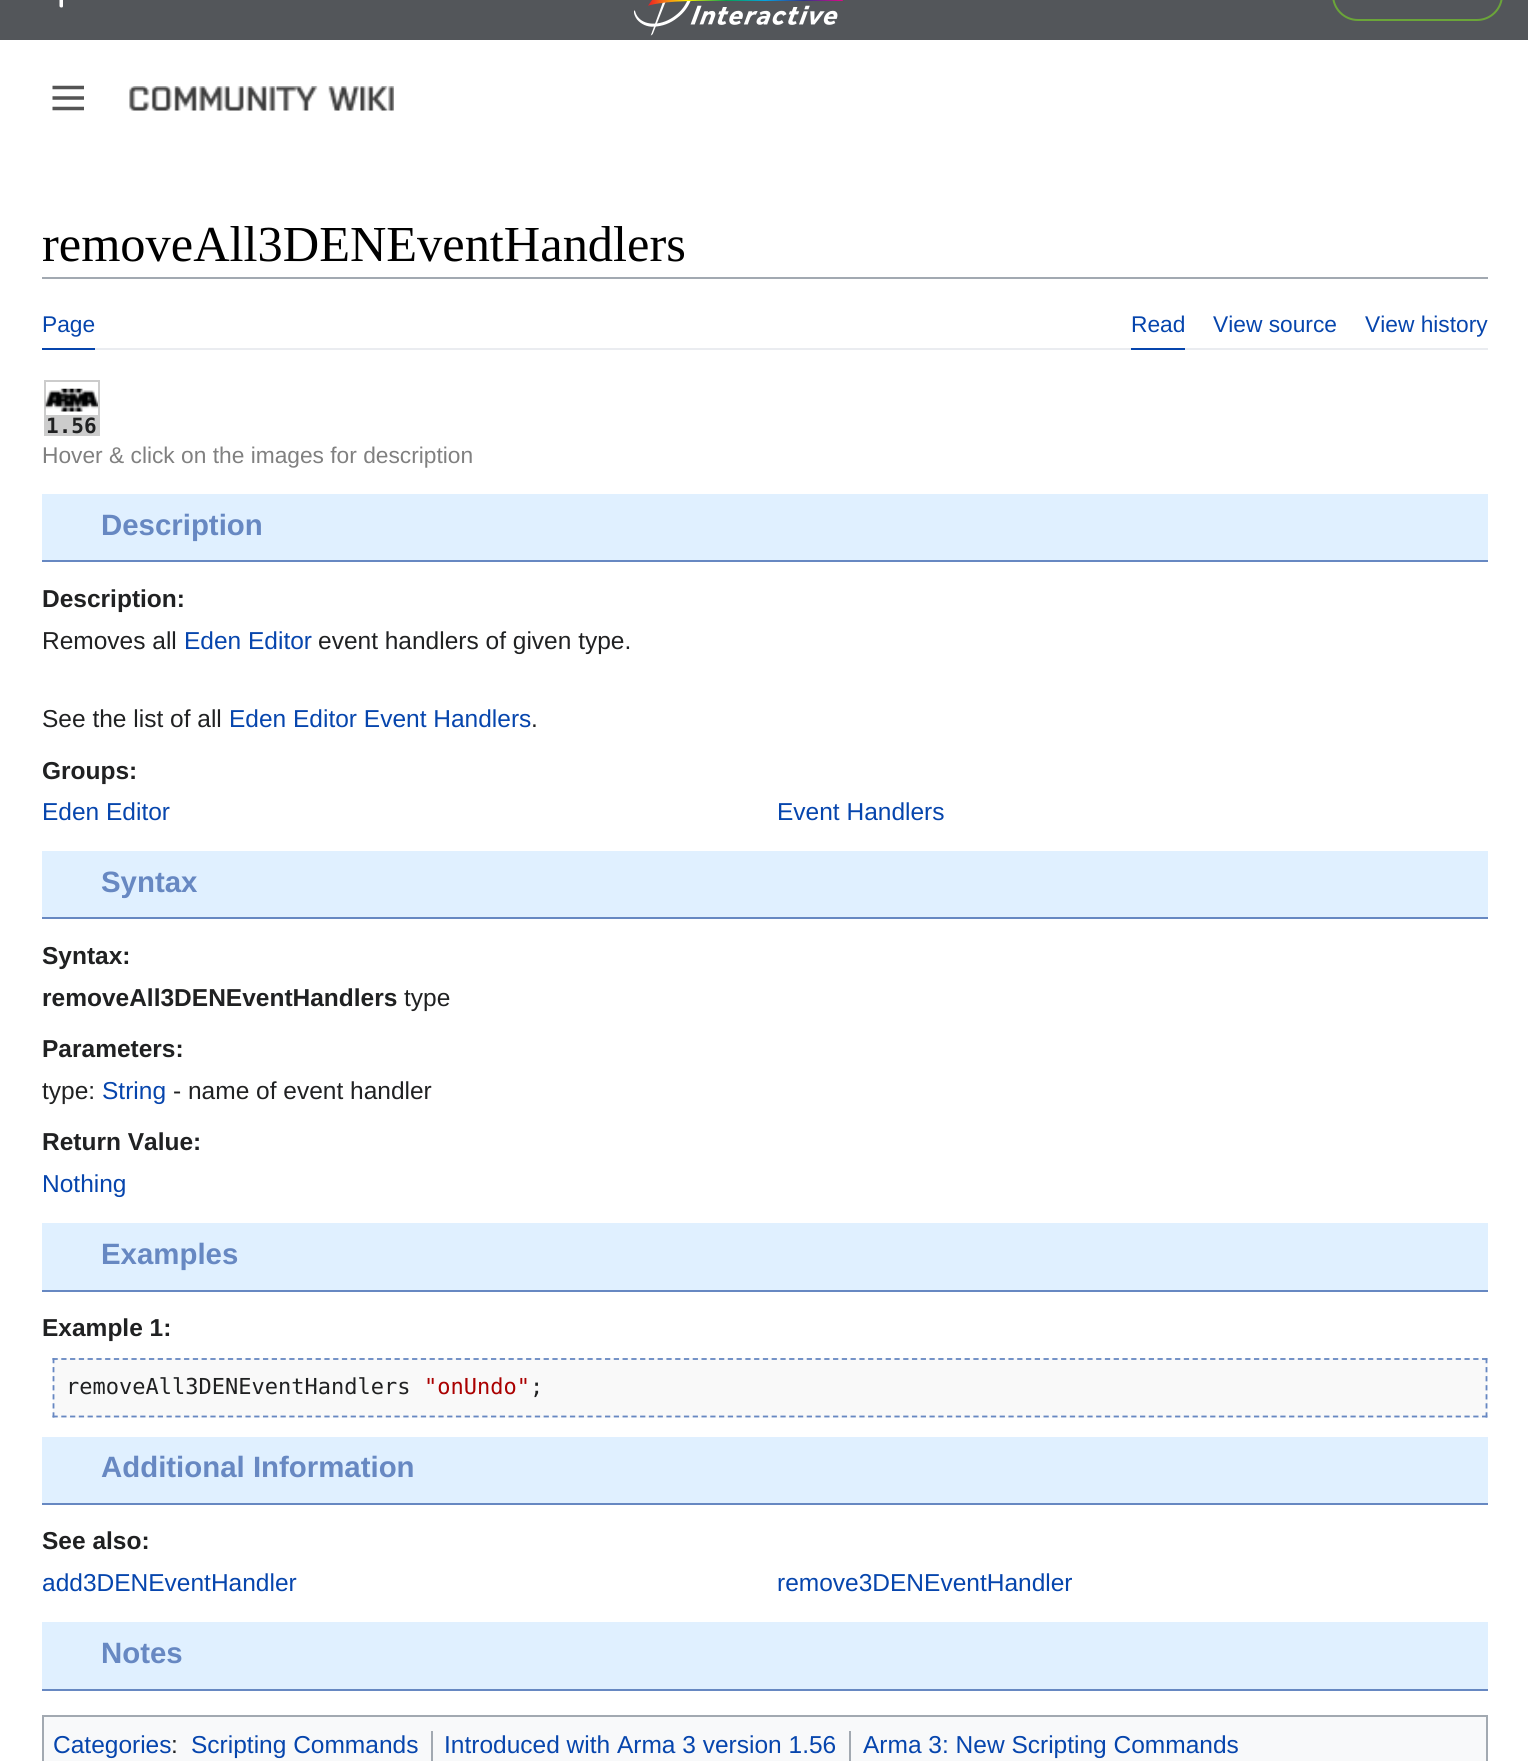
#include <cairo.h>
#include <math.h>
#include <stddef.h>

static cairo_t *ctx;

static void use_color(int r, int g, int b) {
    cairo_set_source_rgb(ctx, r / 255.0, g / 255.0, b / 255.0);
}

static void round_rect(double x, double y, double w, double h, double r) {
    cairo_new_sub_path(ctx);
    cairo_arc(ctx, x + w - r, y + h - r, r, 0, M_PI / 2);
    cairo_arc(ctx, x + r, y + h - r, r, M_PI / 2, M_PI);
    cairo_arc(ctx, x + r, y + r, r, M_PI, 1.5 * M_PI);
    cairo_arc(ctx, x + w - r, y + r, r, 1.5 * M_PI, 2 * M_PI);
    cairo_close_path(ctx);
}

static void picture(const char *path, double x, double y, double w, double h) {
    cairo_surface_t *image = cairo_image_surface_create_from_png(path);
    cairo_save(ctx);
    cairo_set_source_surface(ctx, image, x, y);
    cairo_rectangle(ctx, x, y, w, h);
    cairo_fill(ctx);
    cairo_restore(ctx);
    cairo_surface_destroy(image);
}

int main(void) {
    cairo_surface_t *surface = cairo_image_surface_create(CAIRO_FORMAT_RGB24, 1528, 1761);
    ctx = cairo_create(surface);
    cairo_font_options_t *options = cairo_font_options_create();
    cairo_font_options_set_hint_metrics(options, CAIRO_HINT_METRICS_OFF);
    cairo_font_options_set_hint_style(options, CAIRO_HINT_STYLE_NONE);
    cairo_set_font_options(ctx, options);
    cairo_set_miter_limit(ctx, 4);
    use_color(255, 255, 255);
    cairo_paint(ctx);
    use_color(83, 86, 90);
    cairo_rectangle(ctx, 0, 0, 1528, 40);
    cairo_fill(ctx);
    use_color(255, 255, 255);
    cairo_new_path(ctx);
    cairo_move_to(ctx, 63, -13);
    cairo_line_to(ctx, 63, 6);
    cairo_curve_to(ctx, 63, 7, 62.5, 7.5, 61.5, 7.5);
    cairo_curve_to(ctx, 60.5, 7.5, 59.5, 7, 59.5, 6);
    cairo_line_to(ctx, 59.5, -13);
    cairo_curve_to(ctx, 59.5, -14, 60.5, -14.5, 61.5, -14.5);
    cairo_curve_to(ctx, 62.5, -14.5, 63, -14, 63, -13);
    cairo_close_path(ctx);
    cairo_fill(ctx);
    picture("img1.png", 634, 0, 209, 36);
    round_rect(1333, -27, 169, 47, 25);
    use_color(107, 165, 57);
    cairo_stroke(ctx);
    picture("img2.png", 52, 85, 32, 26);
    picture("img3.png", 129, 86, 265, 25);
    use_color(162, 169, 177);
    cairo_rectangle(ctx, 42, 277, 1446, 2);
    cairo_fill(ctx);
    cairo_select_font_face(ctx, "Liberation Serif", CAIRO_FONT_SLANT_NORMAL, CAIRO_FONT_WEIGHT_NORMAL);
    cairo_set_font_size(ctx, 50.4);
    use_color(0, 0, 0);
    cairo_move_to(ctx, 42, 261);
    cairo_show_text(ctx, "removeAll3DENEventHandlers");
    use_color(234, 236, 240);
    cairo_rectangle(ctx, 95, 348, 1393, 2);
    cairo_fill(ctx);
    use_color(6, 69, 173);
    cairo_rectangle(ctx, 42, 348, 53, 2);
    cairo_fill(ctx);
    cairo_select_font_face(ctx, "Liberation Sans", CAIRO_FONT_SLANT_NORMAL, CAIRO_FONT_WEIGHT_NORMAL);
    cairo_set_font_size(ctx, 22.75);
    cairo_move_to(ctx, 42, 332);
    cairo_show_text(ctx, "Page");
    cairo_rectangle(ctx, 1131, 348, 54, 2);
    cairo_fill(ctx);
    cairo_move_to(ctx, 1131, 332);
    cairo_show_text(ctx, "Read");
    cairo_move_to(ctx, 1213, 332);
    cairo_show_text(ctx, "View source");
    cairo_move_to(ctx, 1365, 332);
    cairo_show_text(ctx, "View history");
    use_color(204, 204, 204);
    cairo_rectangle(ctx, 44, 380, 56, 56);
    cairo_fill(ctx);
    use_color(255, 255, 255);
    cairo_rectangle(ctx, 46, 382, 52, 33);
    cairo_fill(ctx);
    picture("img4.png", 45, 388, 53, 24);
    cairo_select_font_face(ctx, "DejaVu Sans Mono", CAIRO_FONT_SLANT_NORMAL, CAIRO_FONT_WEIGHT_BOLD);
    cairo_set_font_size(ctx, 21);
    use_color(32, 33, 34);
    cairo_move_to(ctx, 46, 433);
    cairo_show_text(ctx, "1.56");
    cairo_select_font_face(ctx, "Liberation Sans", CAIRO_FONT_SLANT_NORMAL, CAIRO_FONT_WEIGHT_NORMAL);
    cairo_set_font_size(ctx, 22.75);
    use_color(128, 128, 128);
    cairo_move_to(ctx, 42, 463);
    cairo_show_text(ctx, "Hover & click on the images for description");
    use_color(224, 240, 255);
    cairo_rectangle(ctx, 42, 494, 1446, 66);
    cairo_fill(ctx);
    use_color(103, 136, 194);
    cairo_rectangle(ctx, 42, 560, 1446, 2);
    cairo_fill(ctx);
    cairo_select_font_face(ctx, "Liberation Sans", CAIRO_FONT_SLANT_NORMAL, CAIRO_FONT_WEIGHT_BOLD);
    cairo_set_font_size(ctx, 29.4);
    cairo_move_to(ctx, 101, 535);
    cairo_show_text(ctx, "Description");
    cairo_set_font_size(ctx, 24.5);
    use_color(32, 33, 34);
    cairo_move_to(ctx, 42, 607);
    cairo_show_text(ctx, "Description:");
    cairo_select_font_face(ctx, "Liberation Sans", CAIRO_FONT_SLANT_NORMAL, CAIRO_FONT_WEIGHT_NORMAL);
    cairo_move_to(ctx, 42, 649);
    cairo_show_text(ctx, "Removes all");
    use_color(6, 69, 173);
    cairo_move_to(ctx, 184, 649);
    cairo_show_text(ctx, "Eden Editor");
    use_color(32, 33, 34);
    cairo_move_to(ctx, 318, 649);
    cairo_show_text(ctx, "event handlers of given type.");
    cairo_move_to(ctx, 42, 727);
    cairo_show_text(ctx, "See the list of all");
    use_color(6, 69, 173);
    cairo_move_to(ctx, 229, 727);
    cairo_show_text(ctx, "Eden Editor Event Handlers");
    use_color(32, 33, 34);
    cairo_move_to(ctx, 531, 727);
    cairo_show_text(ctx, ".");
    cairo_select_font_face(ctx, "Liberation Sans", CAIRO_FONT_SLANT_NORMAL, CAIRO_FONT_WEIGHT_BOLD);
    cairo_move_to(ctx, 42, 779);
    cairo_show_text(ctx, "Groups:");
    cairo_select_font_face(ctx, "Liberation Sans", CAIRO_FONT_SLANT_NORMAL, CAIRO_FONT_WEIGHT_NORMAL);
    use_color(6, 69, 173);
    cairo_move_to(ctx, 42, 820);
    cairo_show_text(ctx, "Eden Editor");
    cairo_move_to(ctx, 777, 820);
    cairo_show_text(ctx, "Event Handlers");
    use_color(224, 240, 255);
    cairo_rectangle(ctx, 42, 851, 1446, 66);
    cairo_fill(ctx);
    use_color(103, 136, 194);
    cairo_rectangle(ctx, 42, 917, 1446, 2);
    cairo_fill(ctx);
    cairo_select_font_face(ctx, "Liberation Sans", CAIRO_FONT_SLANT_NORMAL, CAIRO_FONT_WEIGHT_BOLD);
    cairo_set_font_size(ctx, 29.4);
    cairo_move_to(ctx, 101, 892);
    cairo_show_text(ctx, "Syntax");
    cairo_set_font_size(ctx, 24.5);
    use_color(32, 33, 34);
    cairo_move_to(ctx, 42, 964);
    cairo_show_text(ctx, "Syntax:");
    cairo_move_to(ctx, 42, 1006);
    cairo_show_text(ctx, "removeAll3DENEventHandlers");
    cairo_select_font_face(ctx, "Liberation Sans", CAIRO_FONT_SLANT_NORMAL, CAIRO_FONT_WEIGHT_NORMAL);
    cairo_move_to(ctx, 404, 1006);
    cairo_show_text(ctx, "type");
    cairo_select_font_face(ctx, "Liberation Sans", CAIRO_FONT_SLANT_NORMAL, CAIRO_FONT_WEIGHT_BOLD);
    cairo_move_to(ctx, 42, 1057);
    cairo_show_text(ctx, "Parameters:");
    cairo_select_font_face(ctx, "Liberation Sans", CAIRO_FONT_SLANT_NORMAL, CAIRO_FONT_WEIGHT_NORMAL);
    cairo_move_to(ctx, 42, 1099);
    cairo_show_text(ctx, "type:");
    use_color(6, 69, 173);
    cairo_move_to(ctx, 102, 1099);
    cairo_show_text(ctx, "String");
    use_color(32, 33, 34);
    cairo_move_to(ctx, 173, 1099);
    cairo_show_text(ctx, "- name of event handler");
    cairo_select_font_face(ctx, "Liberation Sans", CAIRO_FONT_SLANT_NORMAL, CAIRO_FONT_WEIGHT_BOLD);
    cairo_move_to(ctx, 42, 1150);
    cairo_show_text(ctx, "Return Value:");
    cairo_select_font_face(ctx, "Liberation Sans", CAIRO_FONT_SLANT_NORMAL, CAIRO_FONT_WEIGHT_NORMAL);
    use_color(6, 69, 173);
    cairo_move_to(ctx, 42, 1192);
    cairo_show_text(ctx, "Nothing");
    use_color(224, 240, 255);
    cairo_rectangle(ctx, 42, 1223, 1446, 67);
    cairo_fill(ctx);
    use_color(103, 136, 194);
    cairo_rectangle(ctx, 42, 1290, 1446, 2);
    cairo_fill(ctx);
    cairo_select_font_face(ctx, "Liberation Sans", CAIRO_FONT_SLANT_NORMAL, CAIRO_FONT_WEIGHT_BOLD);
    cairo_set_font_size(ctx, 29.4);
    cairo_move_to(ctx, 101, 1264);
    cairo_show_text(ctx, "Examples");
    cairo_set_font_size(ctx, 24.5);
    use_color(32, 33, 34);
    cairo_move_to(ctx, 42, 1336);
    cairo_show_text(ctx, "Example 1:");
    use_color(249, 249, 249);
    cairo_rectangle(ctx, 53, 1358, 1435, 60);
    cairo_fill(ctx);
    cairo_new_path(ctx);
    cairo_move_to(ctx, 52.5, 1359);
    cairo_line_to(ctx, 1487.5, 1359);
    use_color(103, 136, 194);
    cairo_set_line_width(ctx, 1.8);
    cairo_set_dash(ctx, (double[]){5.25, 3.52}, 2, 0);
    cairo_stroke(ctx);
    cairo_new_path(ctx);
    cairo_move_to(ctx, 1486.5, 1358);
    cairo_line_to(ctx, 1486.5, 1417.5);
    cairo_set_dash(ctx, (double[]){5.25, 3.8}, 2, 0);
    cairo_stroke(ctx);
    cairo_new_path(ctx);
    cairo_move_to(ctx, 52.5, 1416.5);
    cairo_line_to(ctx, 1487.5, 1416.5);
    cairo_set_dash(ctx, (double[]){5.25, 3.52}, 2, 0);
    cairo_stroke(ctx);
    cairo_new_path(ctx);
    cairo_move_to(ctx, 53.5, 1358);
    cairo_line_to(ctx, 53.5, 1417.5);
    cairo_set_dash(ctx, (double[]){5.25, 3.8}, 2, 0);
    cairo_stroke(ctx);
    cairo_select_font_face(ctx, "DejaVu Sans Mono", CAIRO_FONT_SLANT_NORMAL, CAIRO_FONT_WEIGHT_NORMAL);
    cairo_set_font_size(ctx, 22);
    use_color(32, 33, 34);
    cairo_move_to(ctx, 66, 1394);
    cairo_show_text(ctx, "removeAll3DENEventHandlers");
    use_color(170, 0, 0);
    cairo_move_to(ctx, 424, 1394);
    cairo_show_text(ctx, "\"onUndo\"");
    use_color(32, 33, 34);
    cairo_move_to(ctx, 530, 1394);
    cairo_show_text(ctx, ";");
    use_color(224, 240, 255);
    cairo_rectangle(ctx, 42, 1437, 1446, 66);
    cairo_fill(ctx);
    use_color(103, 136, 194);
    cairo_rectangle(ctx, 42, 1503, 1446, 2);
    cairo_fill(ctx);
    cairo_select_font_face(ctx, "Liberation Sans", CAIRO_FONT_SLANT_NORMAL, CAIRO_FONT_WEIGHT_BOLD);
    cairo_set_font_size(ctx, 29.4);
    cairo_move_to(ctx, 101, 1477);
    cairo_show_text(ctx, "Additional Information");
    cairo_set_font_size(ctx, 24.5);
    use_color(32, 33, 34);
    cairo_move_to(ctx, 42, 1549);
    cairo_show_text(ctx, "See also:");
    cairo_select_font_face(ctx, "Liberation Sans", CAIRO_FONT_SLANT_NORMAL, CAIRO_FONT_WEIGHT_NORMAL);
    use_color(6, 69, 173);
    cairo_move_to(ctx, 42, 1591);
    cairo_show_text(ctx, "add3DENEventHandler");
    cairo_move_to(ctx, 777, 1591);
    cairo_show_text(ctx, "remove3DENEventHandler");
    use_color(224, 240, 255);
    cairo_rectangle(ctx, 42, 1622, 1446, 67);
    cairo_fill(ctx);
    use_color(103, 136, 194);
    cairo_rectangle(ctx, 42, 1689, 1446, 2);
    cairo_fill(ctx);
    cairo_select_font_face(ctx, "Liberation Sans", CAIRO_FONT_SLANT_NORMAL, CAIRO_FONT_WEIGHT_BOLD);
    cairo_set_font_size(ctx, 29.4);
    cairo_move_to(ctx, 101, 1663);
    cairo_show_text(ctx, "Notes");
    use_color(248, 249, 250);
    cairo_rectangle(ctx, 43, 1716, 1444, 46);
    cairo_fill_preserve(ctx);
    use_color(162, 169, 177);
    cairo_set_line_width(ctx, 2);
    cairo_set_dash(ctx, NULL, 0, 0);
    cairo_stroke(ctx);
    cairo_select_font_face(ctx, "Liberation Sans", CAIRO_FONT_SLANT_NORMAL, CAIRO_FONT_WEIGHT_NORMAL);
    cairo_set_font_size(ctx, 24.5);
    use_color(6, 69, 173);
    cairo_move_to(ctx, 53, 1753);
    cairo_show_text(ctx, "Categories");
    use_color(32, 33, 34);
    cairo_move_to(ctx, 171, 1753);
    cairo_show_text(ctx, ":");
    use_color(6, 69, 173);
    cairo_move_to(ctx, 191, 1753);
    cairo_show_text(ctx, "Scripting Commands");
    use_color(162, 169, 177);
    cairo_rectangle(ctx, 431, 1731, 2, 30);
    cairo_fill(ctx);
    use_color(6, 69, 173);
    cairo_move_to(ctx, 444, 1753);
    cairo_show_text(ctx, "Introduced with Arma 3 version 1.56");
    use_color(162, 169, 177);
    cairo_rectangle(ctx, 849, 1731, 2, 30);
    cairo_fill(ctx);
    use_color(6, 69, 173);
    cairo_move_to(ctx, 863, 1753);
    cairo_show_text(ctx, "Arma 3: New Scripting Commands");
    cairo_surface_write_to_png(surface, "result.png");
    cairo_font_options_destroy(options);
    cairo_destroy(ctx);
    cairo_surface_destroy(surface);
    return 0;
}
